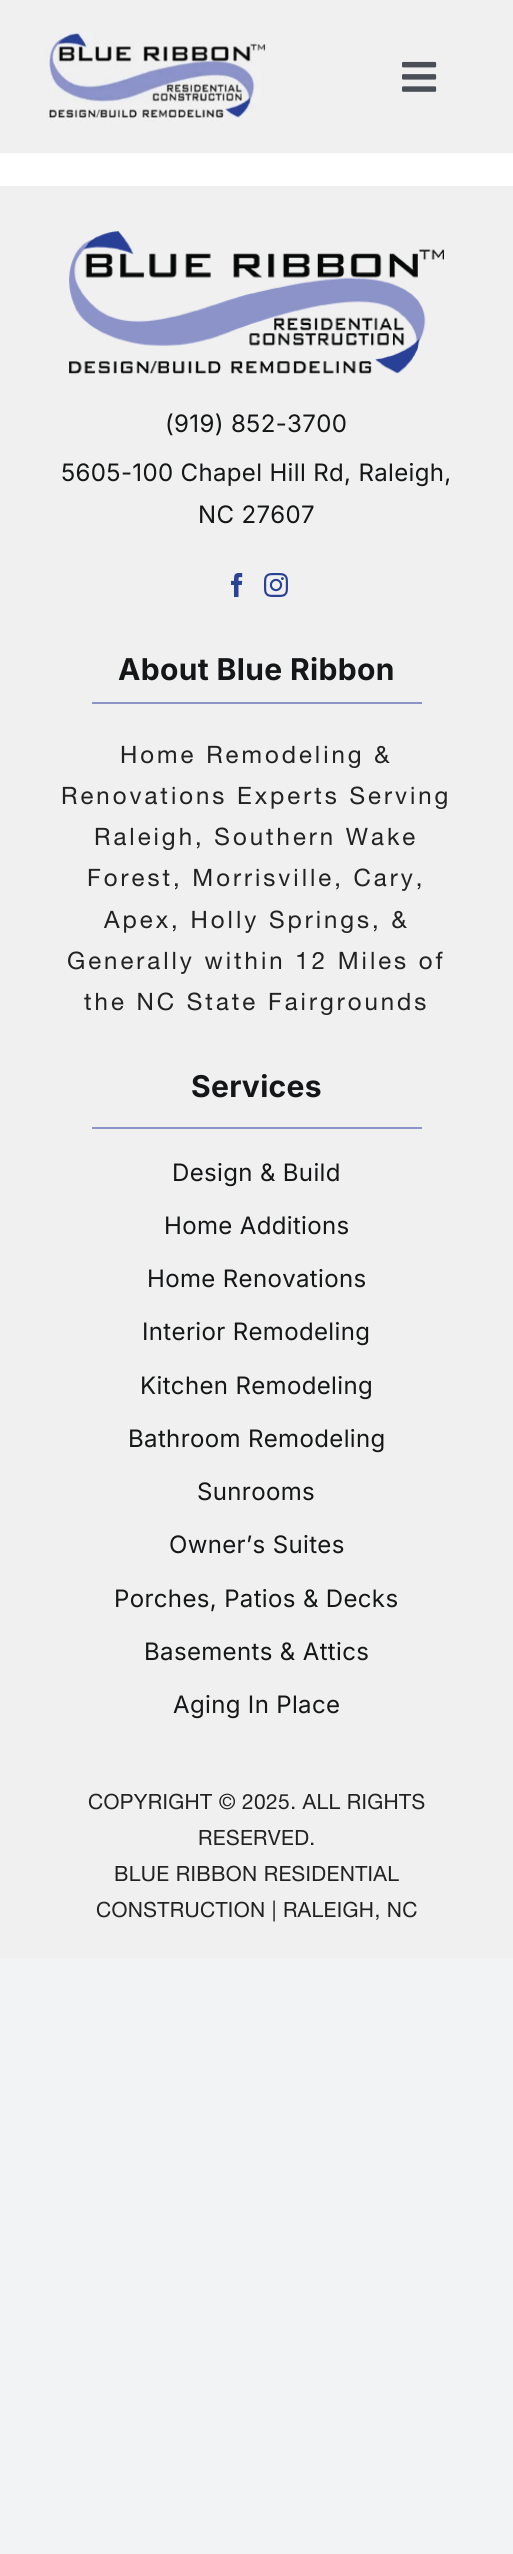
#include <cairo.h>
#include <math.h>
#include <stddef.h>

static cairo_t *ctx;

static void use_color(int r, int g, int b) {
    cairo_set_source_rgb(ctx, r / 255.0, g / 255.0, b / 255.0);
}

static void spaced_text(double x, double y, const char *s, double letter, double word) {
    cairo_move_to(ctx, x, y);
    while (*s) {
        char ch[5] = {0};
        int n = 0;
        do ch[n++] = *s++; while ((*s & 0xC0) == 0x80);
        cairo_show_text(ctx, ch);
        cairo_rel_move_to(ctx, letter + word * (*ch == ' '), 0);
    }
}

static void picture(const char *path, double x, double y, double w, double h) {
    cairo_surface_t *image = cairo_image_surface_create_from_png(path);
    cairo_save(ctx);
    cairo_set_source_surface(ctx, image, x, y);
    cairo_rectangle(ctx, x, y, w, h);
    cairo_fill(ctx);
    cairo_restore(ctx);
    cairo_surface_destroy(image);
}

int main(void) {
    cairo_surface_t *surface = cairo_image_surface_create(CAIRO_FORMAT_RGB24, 513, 2554);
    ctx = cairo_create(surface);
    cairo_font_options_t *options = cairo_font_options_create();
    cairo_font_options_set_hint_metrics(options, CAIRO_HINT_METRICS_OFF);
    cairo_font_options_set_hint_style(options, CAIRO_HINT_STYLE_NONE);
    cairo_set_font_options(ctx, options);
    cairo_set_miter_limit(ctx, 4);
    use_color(242, 243, 245);
    cairo_paint(ctx);
    use_color(255, 255, 255);
    cairo_rectangle(ctx, 0, 153, 513, 33);
    cairo_fill(ctx);
    use_color(240, 240, 240);
    cairo_rectangle(ctx, 0, 0, 513, 153);
    cairo_fill(ctx);
    picture("img1.png", 45, 31, 222, 90);
    picture("img2.png", 402, 61, 35, 31);
    cairo_rectangle(ctx, 0, 186, 513, 1772);
    cairo_fill(ctx);
    picture("img3.png", 69, 231, 375, 143);
    cairo_select_font_face(ctx, "Inter", CAIRO_FONT_SLANT_NORMAL, CAIRO_FONT_WEIGHT_NORMAL);
    cairo_set_font_size(ctx, 24);
    use_color(20, 22, 23);
    spaced_text(165, 432, "(919) 852-3700", 0.35, 0);
    spaced_text(61, 481, "5605-100 Chapel Hill Rd, Raleigh,", 0.35, 0);
    spaced_text(198, 523, "NC 27607", 0.35, 0);
    picture("img4.png", 231, 573, 12, 24);
    picture("img5.png", 264, 573, 24, 24);
    cairo_select_font_face(ctx, "Inter", CAIRO_FONT_SLANT_NORMAL, CAIRO_FONT_WEIGHT_BOLD);
    cairo_set_font_size(ctx, 30);
    spaced_text(118, 680, "About Blue Ribbon", 0.35, 0);
    use_color(139, 147, 201);
    cairo_rectangle(ctx, 92, 702, 330, 2);
    cairo_fill(ctx);
    cairo_select_font_face(ctx, "Helvetica Neue", CAIRO_FONT_SLANT_NORMAL, CAIRO_FONT_WEIGHT_NORMAL);
    cairo_set_font_size(ctx, 24);
    use_color(34, 34, 34);
    spaced_text(120, 763, "Home Remodeling &", 3, 0);
    spaced_text(61, 804, "Renovations Experts Serving", 3, 0);
    spaced_text(94, 845, "Raleigh, Southern Wake", 3, 0);
    spaced_text(87, 886, "Forest, Morrisville, Cary,", 3, 0);
    spaced_text(104, 928, "Apex, Holly Springs, &", 3, 0);
    spaced_text(67, 969, "Generally within 12 Miles of", 3, 0);
    spaced_text(84, 1010, "the NC State Fairgrounds", 3, 0);
    cairo_select_font_face(ctx, "Inter", CAIRO_FONT_SLANT_NORMAL, CAIRO_FONT_WEIGHT_BOLD);
    cairo_set_font_size(ctx, 30);
    use_color(20, 22, 23);
    spaced_text(191, 1097, "Services", 0.35, 0);
    use_color(139, 147, 201);
    cairo_rectangle(ctx, 92, 1127, 330, 2);
    cairo_fill(ctx);
    cairo_select_font_face(ctx, "Inter", CAIRO_FONT_SLANT_NORMAL, CAIRO_FONT_WEIGHT_NORMAL);
    cairo_set_font_size(ctx, 24);
    use_color(20, 22, 23);
    spaced_text(172, 1181, "Design & Build", 0.35, 0);
    spaced_text(164, 1234, "Home Additions", 0.35, 0);
    spaced_text(147, 1287, "Home Renovations", 0.35, 0);
    spaced_text(142, 1340, "Interior Remodeling", 0.35, 0);
    spaced_text(140, 1394, "Kitchen Remodeling", 0.35, 0);
    spaced_text(128, 1447, "Bathroom Remodeling", 0.35, 0);
    spaced_text(197, 1500, "Sunrooms", 0.35, 0);
    spaced_text(169, 1553, "Owner’s Suites", 0.35, 0);
    spaced_text(114, 1607, "Porches, Patios & Decks", 0.35, 0);
    spaced_text(144, 1660, "Basements & Attics", 0.35, 0);
    spaced_text(173, 1713, "Aging In Place", 0.35, 0);
    cairo_select_font_face(ctx, "Helvetica Neue", CAIRO_FONT_SLANT_NORMAL, CAIRO_FONT_WEIGHT_NORMAL);
    cairo_set_font_size(ctx, 21);
    use_color(34, 34, 34);
    spaced_text(88, 1809, "COPYRIGHT © 2025. ALL RIGHTS", 0.35, 0);
    spaced_text(198, 1845, "RESERVED.", 0.35, 0);
    spaced_text(114, 1881, "BLUE RIBBON RESIDENTIAL", 0.35, 0);
    spaced_text(96, 1917, "CONSTRUCTION | RALEIGH, NC", 0.35, 0);
    cairo_surface_write_to_png(surface, "result.png");
    cairo_font_options_destroy(options);
    cairo_destroy(ctx);
    cairo_surface_destroy(surface);
    return 0;
}
